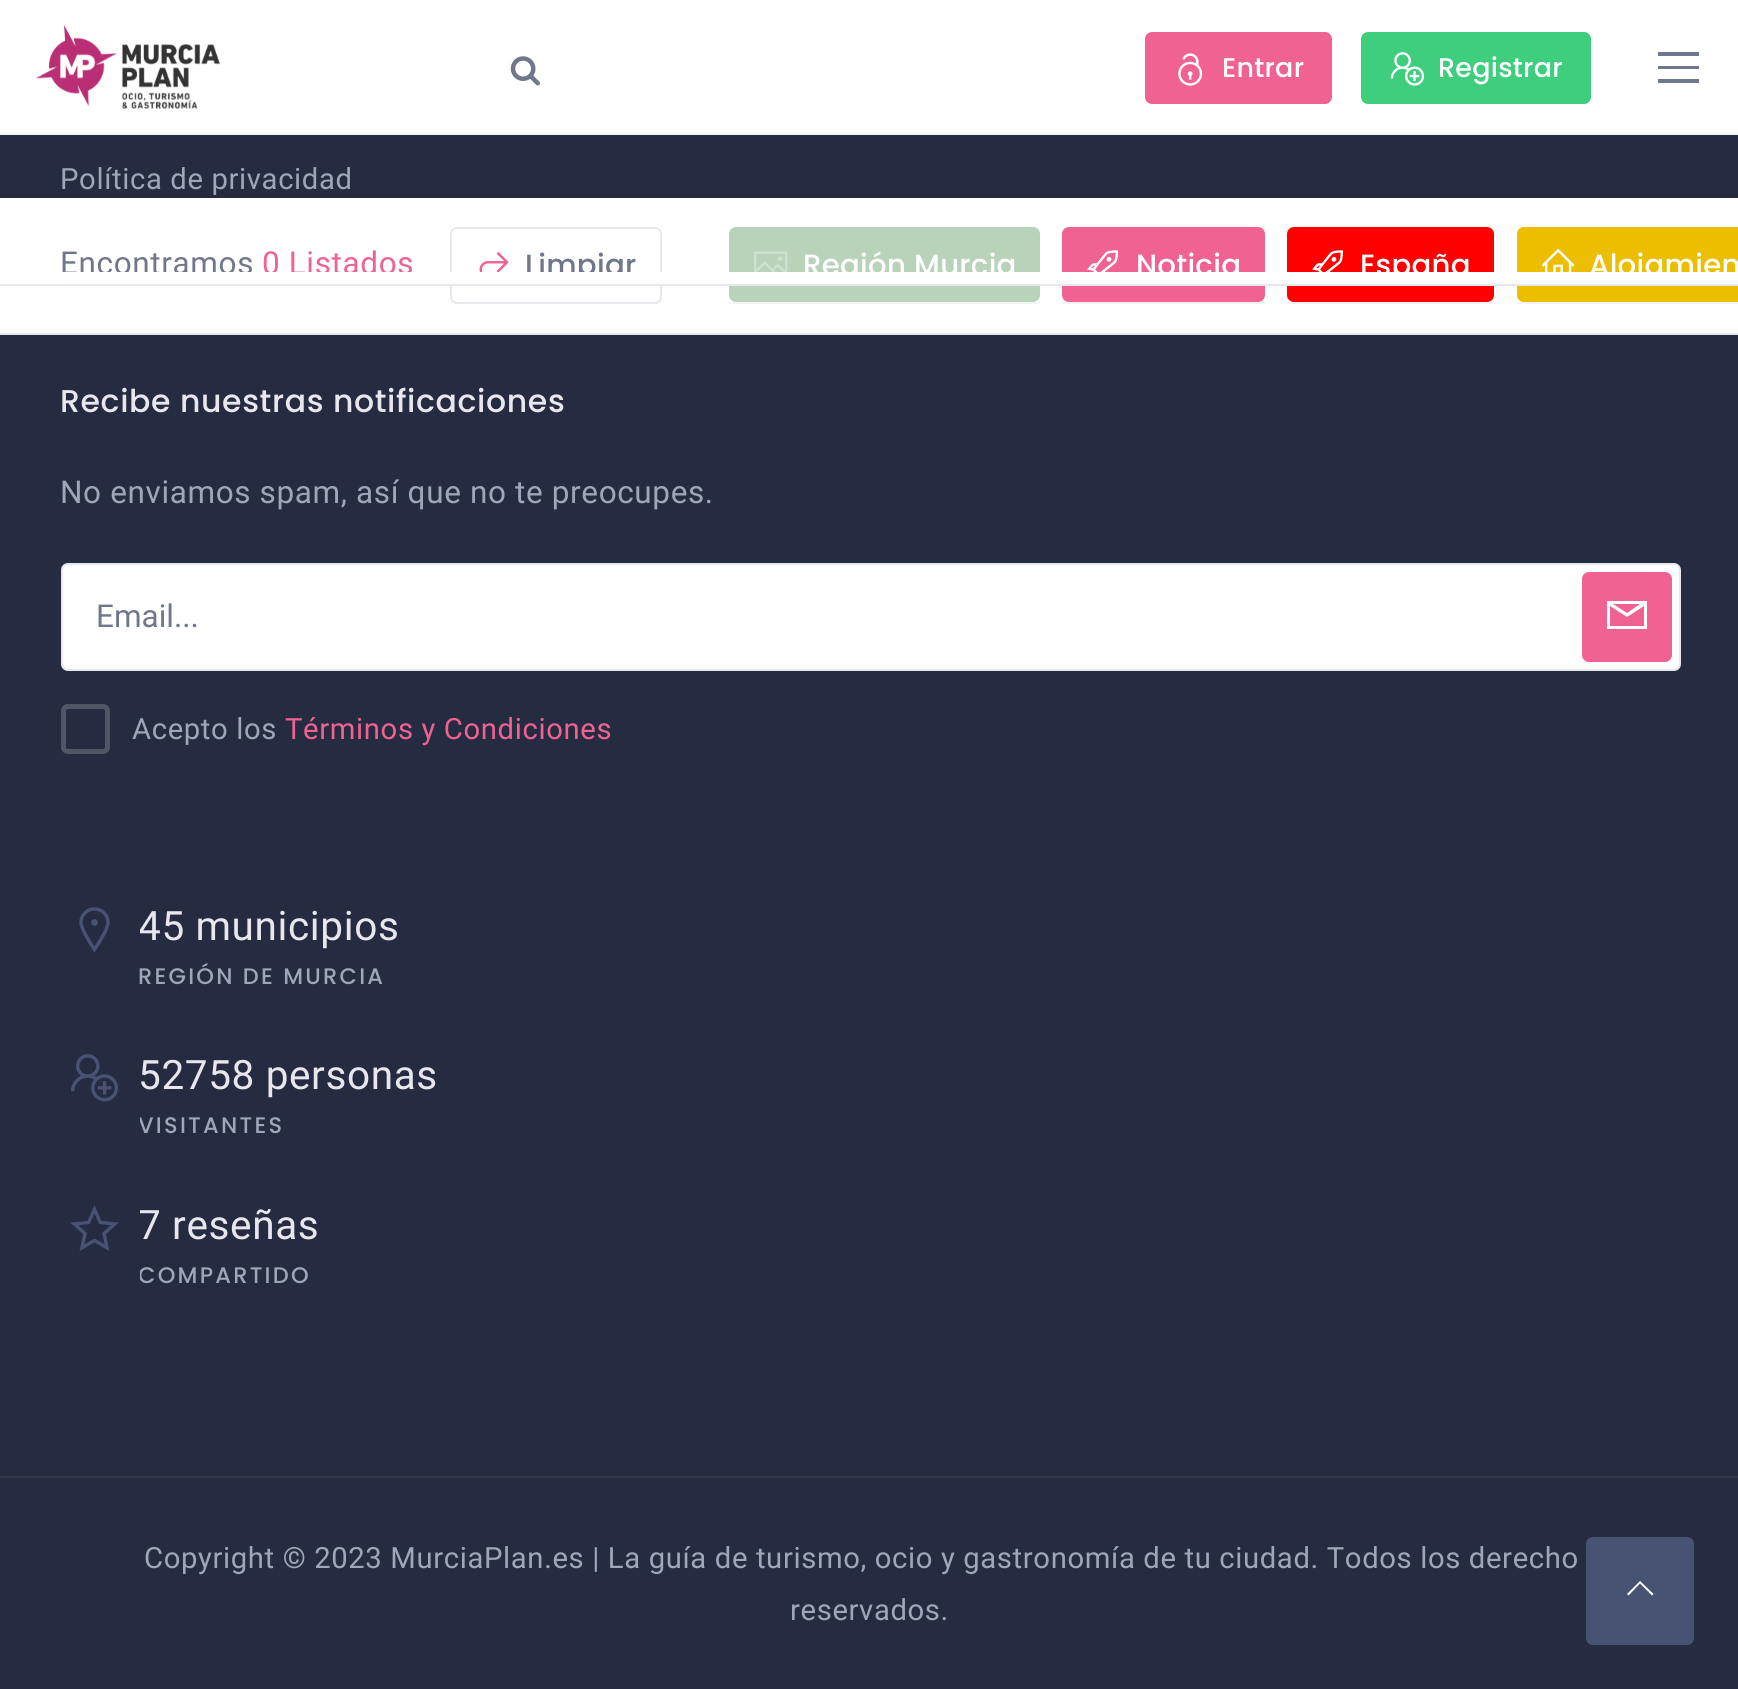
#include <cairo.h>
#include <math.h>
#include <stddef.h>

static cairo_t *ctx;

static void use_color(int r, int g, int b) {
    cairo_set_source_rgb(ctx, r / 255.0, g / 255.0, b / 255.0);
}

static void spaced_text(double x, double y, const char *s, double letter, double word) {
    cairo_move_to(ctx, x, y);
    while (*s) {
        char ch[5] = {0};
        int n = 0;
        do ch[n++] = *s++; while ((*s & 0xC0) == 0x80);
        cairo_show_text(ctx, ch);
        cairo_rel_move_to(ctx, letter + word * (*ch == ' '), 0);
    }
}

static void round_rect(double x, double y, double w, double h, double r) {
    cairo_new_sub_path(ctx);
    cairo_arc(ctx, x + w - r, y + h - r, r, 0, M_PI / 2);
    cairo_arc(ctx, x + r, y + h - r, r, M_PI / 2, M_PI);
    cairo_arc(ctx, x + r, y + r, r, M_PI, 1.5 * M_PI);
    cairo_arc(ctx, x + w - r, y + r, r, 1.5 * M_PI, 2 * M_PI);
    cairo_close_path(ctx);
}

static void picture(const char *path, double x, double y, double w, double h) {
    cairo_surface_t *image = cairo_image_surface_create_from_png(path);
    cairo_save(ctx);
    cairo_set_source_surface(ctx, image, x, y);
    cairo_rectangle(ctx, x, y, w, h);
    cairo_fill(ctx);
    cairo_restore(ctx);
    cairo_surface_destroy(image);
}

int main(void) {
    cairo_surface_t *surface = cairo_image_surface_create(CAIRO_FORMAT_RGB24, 1738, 1689);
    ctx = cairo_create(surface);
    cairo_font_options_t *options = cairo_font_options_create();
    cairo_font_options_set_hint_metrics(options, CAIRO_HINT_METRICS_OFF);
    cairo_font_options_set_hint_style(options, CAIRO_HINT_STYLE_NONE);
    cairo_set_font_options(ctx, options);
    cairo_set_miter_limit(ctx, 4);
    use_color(37, 44, 65);
    cairo_paint(ctx);
    use_color(255, 255, 255);
    cairo_rectangle(ctx, 0, 0, 1738, 133);
    cairo_fill(ctx);
    picture("img1.png", 36, 25, 184, 84);
    picture("img2.png", 510, 56, 30, 30);
    use_color(240, 98, 146);
    round_rect(1145, 32, 187, 72, 7);
    cairo_fill(ctx);
    picture("img3.png", 1178, 53, 25, 33);
    cairo_select_font_face(ctx, "Poppins Medium", CAIRO_FONT_SLANT_NORMAL, CAIRO_FONT_WEIGHT_NORMAL);
    cairo_set_font_size(ctx, 27);
    use_color(255, 255, 255);
    spaced_text(1222, 77, "Entrar", 0.25, 0);
    use_color(62, 206, 126);
    round_rect(1361, 32, 230, 72, 7);
    cairo_fill(ctx);
    picture("img4.png", 1390, 52, 35, 34);
    use_color(255, 255, 255);
    spaced_text(1438, 77, "Registrar", 0.25, 0);
    use_color(112, 119, 139);
    cairo_new_path(ctx);
    cairo_move_to(ctx, 1658, 52);
    cairo_line_to(ctx, 1699, 52);
    cairo_line_to(ctx, 1699, 56);
    cairo_line_to(ctx, 1658, 56);
    cairo_close_path(ctx);
    cairo_move_to(ctx, 1658, 66);
    cairo_line_to(ctx, 1699, 66);
    cairo_line_to(ctx, 1699, 69);
    cairo_line_to(ctx, 1658, 69);
    cairo_close_path(ctx);
    cairo_move_to(ctx, 1658, 79);
    cairo_line_to(ctx, 1699, 79);
    cairo_line_to(ctx, 1699, 83);
    cairo_line_to(ctx, 1658, 83);
    cairo_close_path(ctx);
    cairo_fill(ctx);
    use_color(243, 243, 246);
    cairo_rectangle(ctx, 0, 133, 1738, 2);
    cairo_fill(ctx);
    cairo_select_font_face(ctx, "Roboto", CAIRO_FONT_SLANT_NORMAL, CAIRO_FONT_WEIGHT_NORMAL);
    cairo_set_font_size(ctx, 29.25);
    use_color(158, 166, 186);
    spaced_text(60, 189, "Política de privacidad", 0.63, 0);
    cairo_select_font_face(ctx, "Poppins Medium", CAIRO_FONT_SLANT_NORMAL, CAIRO_FONT_WEIGHT_NORMAL);
    cairo_set_font_size(ctx, 31.5);
    use_color(231, 231, 237);
    spaced_text(60, 412, "Recibe nuestras notificaciones", 0.63, 0);
    cairo_select_font_face(ctx, "Roboto", CAIRO_FONT_SLANT_NORMAL, CAIRO_FONT_WEIGHT_NORMAL);
    use_color(158, 166, 186);
    spaced_text(60, 503, "No enviamos spam, así que no te preocupes.", 0.63, 0);
    use_color(255, 255, 255);
    round_rect(62, 564, 1618, 106, 6);
    cairo_fill_preserve(ctx);
    use_color(231, 231, 237);
    cairo_stroke(ctx);
    use_color(112, 119, 139);
    cairo_move_to(ctx, 96, 627);
    cairo_show_text(ctx, "Email...");
    use_color(240, 98, 146);
    round_rect(1582, 572, 90, 90, 7);
    cairo_fill(ctx);
    use_color(255, 255, 255);
    cairo_new_path(ctx);
    cairo_move_to(ctx, 1607, 601);
    cairo_line_to(ctx, 1647, 601);
    cairo_line_to(ctx, 1647, 629);
    cairo_line_to(ctx, 1607, 629);
    cairo_close_path(ctx);
    cairo_move_to(ctx, 1613, 604);
    cairo_line_to(ctx, 1627, 613);
    cairo_line_to(ctx, 1640, 604);
    cairo_close_path(ctx);
    cairo_move_to(ctx, 1610, 606);
    cairo_line_to(ctx, 1610, 626);
    cairo_line_to(ctx, 1644, 626);
    cairo_line_to(ctx, 1644, 606);
    cairo_line_to(ctx, 1627, 617);
    cairo_close_path(ctx);
    cairo_fill(ctx);
    round_rect(63.5, 706.5, 44, 45, 4.5);
    use_color(81, 86, 103);
    cairo_set_line_width(ctx, 5);
    cairo_stroke(ctx);
    cairo_set_font_size(ctx, 29.25);
    use_color(158, 166, 186);
    spaced_text(132, 739, "Acepto los", 0.63, 0);
    use_color(240, 98, 146);
    spaced_text(285, 739, "Términos y Condiciones", 0.63, 0);
    picture("img5.png", 79, 907, 31, 46);
    cairo_save(ctx);
    cairo_rectangle(ctx, 140, 902, 1541, 95);
    cairo_clip(ctx);
    cairo_set_font_size(ctx, 40.5);
    use_color(231, 231, 237);
    spaced_text(138, 940, "45 municipios", 0.63, 0);
    cairo_restore(ctx);
    cairo_select_font_face(ctx, "Poppins Medium", CAIRO_FONT_SLANT_NORMAL, CAIRO_FONT_WEIGHT_NORMAL);
    cairo_set_font_size(ctx, 22.5);
    use_color(158, 166, 186);
    spaced_text(138, 984, "REGIÓN DE MURCIA", 2.25, 0);
    picture("img6.png", 71, 1054, 48, 48);
    cairo_select_font_face(ctx, "Roboto", CAIRO_FONT_SLANT_NORMAL, CAIRO_FONT_WEIGHT_NORMAL);
    cairo_set_font_size(ctx, 40.5);
    use_color(231, 231, 237);
    spaced_text(138, 1089, "52758 personas", 0.63, 0);
    cairo_save(ctx);
    cairo_rectangle(ctx, 140, 1051, 1541, 97);
    cairo_clip(ctx);
    cairo_select_font_face(ctx, "Poppins Medium", CAIRO_FONT_SLANT_NORMAL, CAIRO_FONT_WEIGHT_NORMAL);
    cairo_set_font_size(ctx, 22.5);
    use_color(158, 166, 186);
    spaced_text(138, 1133, "VISITANTES", 2.25, 0);
    cairo_restore(ctx);
    picture("img7.png", 70, 1205, 49, 46);
    cairo_save(ctx);
    cairo_rectangle(ctx, 140, 1202, 1541, 94);
    cairo_clip(ctx);
    spaced_text(138, 1239, "7 reseñas", 0.63, 0);
    cairo_select_font_face(ctx, "Poppins Medium", CAIRO_FONT_SLANT_NORMAL, CAIRO_FONT_WEIGHT_NORMAL);
    cairo_set_font_size(ctx, 22.5);
    use_color(158, 166, 186);
    spaced_text(138, 1283, "COMPARTIDO", 2.25, 0);
    cairo_restore(ctx);
    use_color(48, 55, 75);
    cairo_rectangle(ctx, 0, 1476, 1738, 2);
    cairo_fill(ctx);
    cairo_set_font_size(ctx, 29.25);
    use_color(158, 166, 186);
    spaced_text(144, 1568, "Copyright © 2023 MurciaPlan.es | La guía de turismo, ocio y gastronomía de tu ciudad. Todos los derecho", 0.63, 0);
    spaced_text(790, 1620, "reservados.", 0.63, 0);
    use_color(255, 255, 255);
    cairo_rectangle(ctx, 0, 198, 1738, 135);
    cairo_fill(ctx);
    use_color(231, 231, 237);
    cairo_rectangle(ctx, 0, 333, 1738, 2);
    cairo_fill(ctx);
    cairo_set_font_size(ctx, 31.5);
    use_color(112, 119, 139);
    spaced_text(60, 274, "Encontramos", 0.63, 0);
    use_color(240, 98, 146);
    spaced_text(262, 274, "0 Listados", 0.63, 0);
    round_rect(451, 228, 210, 75, 6);
    use_color(231, 231, 237);
    cairo_set_line_width(ctx, 2);
    cairo_stroke(ctx);
    picture("img8.png", 479, 251, 30, 21);
    cairo_select_font_face(ctx, "Poppins Medium", CAIRO_FONT_SLANT_NORMAL, CAIRO_FONT_WEIGHT_NORMAL);
    cairo_set_font_size(ctx, 29.25);
    use_color(112, 119, 139);
    spaced_text(525, 275, "Limpiar", 0.25, 0);
    use_color(243, 243, 246);
    cairo_rectangle(ctx, 729, 302, 311, 2);
    cairo_fill(ctx);
    use_color(185, 211, 187);
    round_rect(729, 227, 311, 75, 7);
    cairo_fill(ctx);
    picture("img9.png", 754, 251, 34, 21);
    use_color(255, 255, 255);
    spaced_text(803, 275, "Región Murcia", 0.25, 0);
    use_color(243, 243, 246);
    cairo_rectangle(ctx, 1062, 302, 203, 2);
    cairo_fill(ctx);
    use_color(240, 98, 146);
    round_rect(1062, 227, 203, 75, 7);
    cairo_fill(ctx);
    picture("img10.png", 1087, 250, 31, 22);
    use_color(255, 255, 255);
    spaced_text(1136, 275, "Noticia", 0.25, 0);
    use_color(243, 243, 246);
    cairo_rectangle(ctx, 1287, 302, 207, 2);
    cairo_fill(ctx);
    use_color(255, 0, 0);
    round_rect(1287, 227, 207, 75, 7);
    cairo_fill(ctx);
    picture("img11.png", 1312, 250, 31, 22);
    use_color(255, 255, 255);
    spaced_text(1360, 275, "España", 0.25, 0);
    use_color(243, 243, 246);
    cairo_rectangle(ctx, 1517, 302, 221, 2);
    cairo_fill(ctx);
    use_color(235, 190, 0);
    cairo_new_path(ctx);
    cairo_move_to(ctx, 1524, 227);
    cairo_line_to(ctx, 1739, 227);
    cairo_line_to(ctx, 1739, 302);
    cairo_line_to(ctx, 1524, 302);
    cairo_curve_to(ctx, 1520, 302, 1517, 299, 1517, 295);
    cairo_line_to(ctx, 1517, 234);
    cairo_curve_to(ctx, 1517, 230, 1520, 227, 1524, 227);
    cairo_close_path(ctx);
    cairo_fill(ctx);
    picture("img12.png", 1541, 248, 34, 24);
    use_color(255, 255, 255);
    spaced_text(1589, 275, "Alojamien", 0.25, 0);
    use_color(254, 254, 254);
    cairo_rectangle(ctx, 62, 272, 1676, 12);
    cairo_fill(ctx);
    use_color(231, 231, 237);
    cairo_rectangle(ctx, 0, 284, 1738, 2);
    cairo_fill(ctx);
    use_color(72, 82, 115);
    round_rect(1586, 1537, 108, 108, 7);
    cairo_fill(ctx);
    use_color(255, 255, 255);
    cairo_new_path(ctx);
    cairo_move_to(ctx, 1640, 1581);
    cairo_line_to(ctx, 1653.5, 1594);
    cairo_line_to(ctx, 1652, 1595.5);
    cairo_line_to(ctx, 1640, 1583.5);
    cairo_line_to(ctx, 1628.5, 1595.5);
    cairo_line_to(ctx, 1627, 1594);
    cairo_close_path(ctx);
    cairo_fill(ctx);
    cairo_surface_write_to_png(surface, "result.png");
    cairo_font_options_destroy(options);
    cairo_destroy(ctx);
    cairo_surface_destroy(surface);
    return 0;
}
